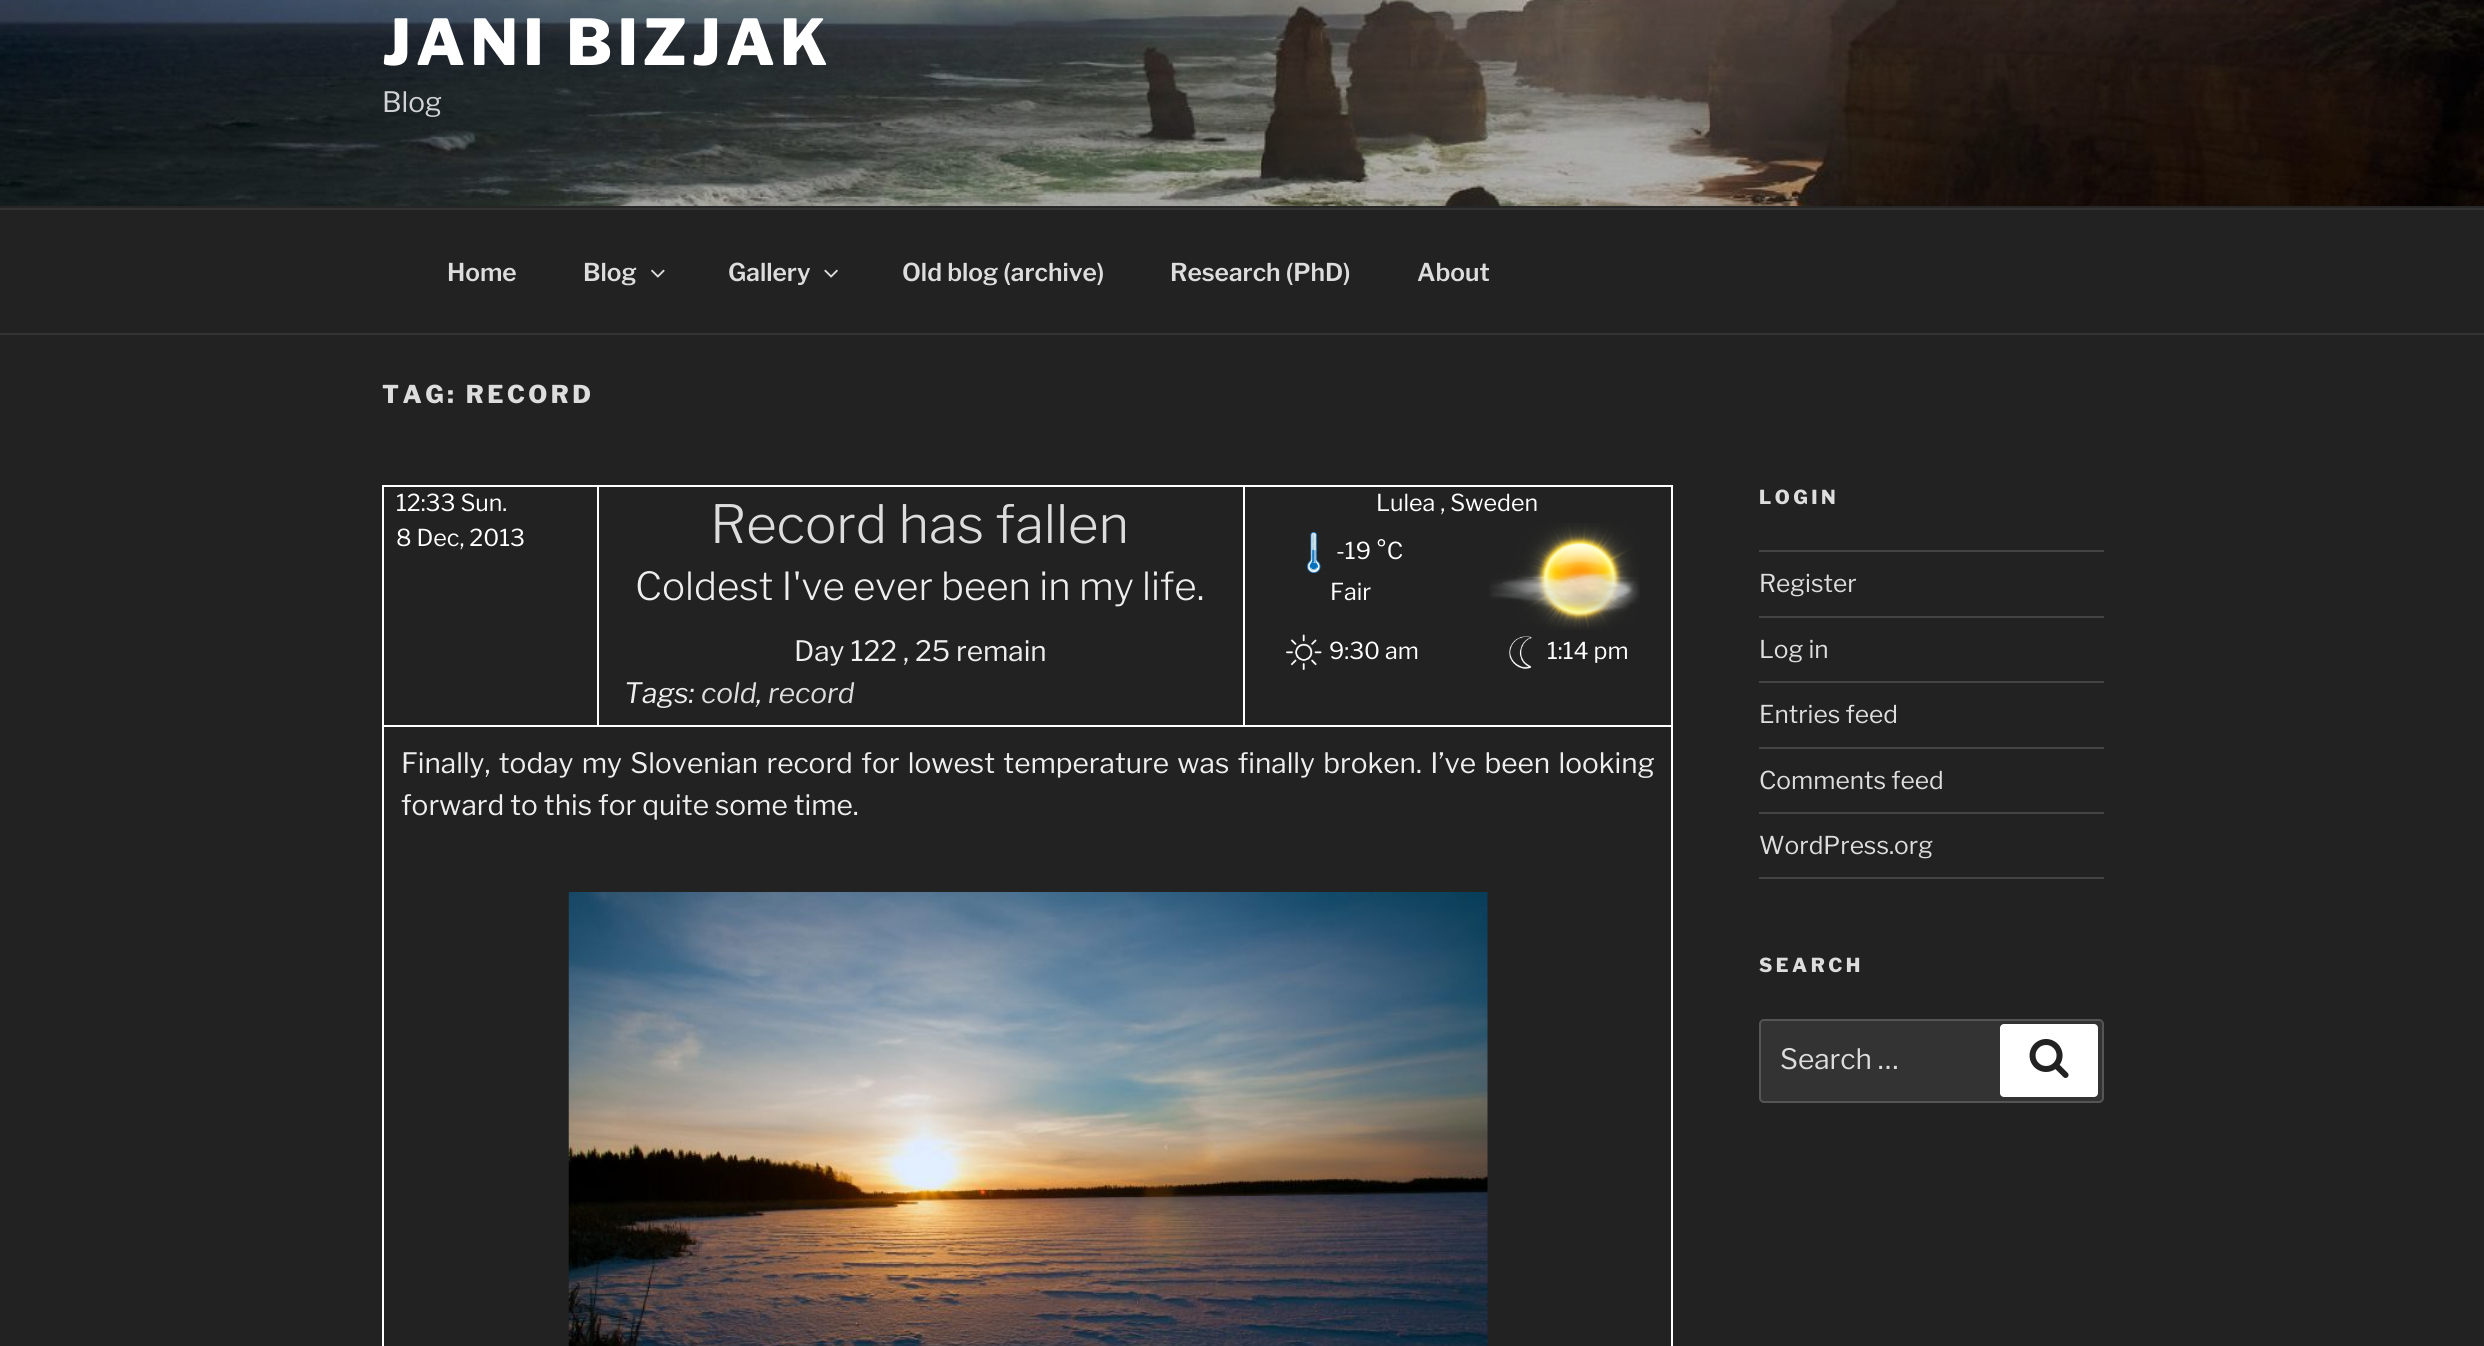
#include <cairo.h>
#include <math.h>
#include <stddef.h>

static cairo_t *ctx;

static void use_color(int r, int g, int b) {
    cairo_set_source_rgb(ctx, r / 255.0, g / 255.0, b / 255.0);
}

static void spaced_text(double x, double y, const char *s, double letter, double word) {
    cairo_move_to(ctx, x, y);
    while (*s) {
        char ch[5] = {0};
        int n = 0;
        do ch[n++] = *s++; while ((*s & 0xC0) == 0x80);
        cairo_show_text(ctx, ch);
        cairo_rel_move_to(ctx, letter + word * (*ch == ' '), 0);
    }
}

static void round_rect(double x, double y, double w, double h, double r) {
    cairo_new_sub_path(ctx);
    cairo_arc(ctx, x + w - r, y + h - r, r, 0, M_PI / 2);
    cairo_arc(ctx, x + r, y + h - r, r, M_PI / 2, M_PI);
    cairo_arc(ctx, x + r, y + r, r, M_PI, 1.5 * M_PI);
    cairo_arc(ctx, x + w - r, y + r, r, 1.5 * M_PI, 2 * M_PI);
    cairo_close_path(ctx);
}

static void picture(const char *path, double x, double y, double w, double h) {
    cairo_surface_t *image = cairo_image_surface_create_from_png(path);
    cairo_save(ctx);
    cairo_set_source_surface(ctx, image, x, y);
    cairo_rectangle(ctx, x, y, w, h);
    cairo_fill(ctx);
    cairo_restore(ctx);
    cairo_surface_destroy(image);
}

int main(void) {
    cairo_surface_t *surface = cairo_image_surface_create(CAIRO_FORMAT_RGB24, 2484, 1346);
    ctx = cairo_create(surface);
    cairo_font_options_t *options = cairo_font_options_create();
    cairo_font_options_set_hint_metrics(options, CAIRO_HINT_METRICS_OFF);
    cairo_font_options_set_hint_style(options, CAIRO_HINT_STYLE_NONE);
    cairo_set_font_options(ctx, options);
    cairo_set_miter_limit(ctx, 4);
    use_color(34, 34, 34);
    cairo_paint(ctx);
    use_color(38, 38, 38);
    cairo_rectangle(ctx, 0, 206, 2484, 2);
    cairo_fill(ctx);
    picture("img1.png", 0, 0, 2484, 206);
    cairo_select_font_face(ctx, "Libre Franklin ExtraBold", CAIRO_FONT_SLANT_NORMAL, CAIRO_FONT_WEIGHT_NORMAL);
    cairo_set_font_size(ctx, 63);
    use_color(255, 255, 255);
    spaced_text(382, 65, "JANI BIZJAK", 5, 0);
    cairo_select_font_face(ctx, "Libre Franklin", CAIRO_FONT_SLANT_NORMAL, CAIRO_FONT_WEIGHT_NORMAL);
    cairo_set_font_size(ctx, 28);
    use_color(210, 211, 212);
    cairo_move_to(ctx, 382, 112);
    cairo_show_text(ctx, "Blog");
    use_color(51, 51, 51);
    cairo_rectangle(ctx, 0, 208, 2484, 2);
    cairo_fill(ctx);
    cairo_rectangle(ctx, 0, 333, 2484, 2);
    cairo_fill(ctx);
    cairo_select_font_face(ctx, "Libre Franklin SemiBold", CAIRO_FONT_SLANT_NORMAL, CAIRO_FONT_WEIGHT_NORMAL);
    cairo_set_font_size(ctx, 24.5);
    use_color(221, 221, 221);
    cairo_move_to(ctx, 447, 281);
    cairo_show_text(ctx, "Home");
    cairo_move_to(ctx, 583, 281);
    cairo_show_text(ctx, "Blog");
    picture("img2.png", 651, 269, 14, 9);
    cairo_move_to(ctx, 728, 281);
    cairo_show_text(ctx, "Gallery");
    picture("img3.png", 824, 269, 14, 9);
    cairo_move_to(ctx, 902, 281);
    cairo_show_text(ctx, "Old blog (archive)");
    cairo_move_to(ctx, 1170, 281);
    cairo_show_text(ctx, "Research (PhD)");
    cairo_move_to(ctx, 1417, 281);
    cairo_show_text(ctx, "About");
    cairo_select_font_face(ctx, "Libre Franklin ExtraBold", CAIRO_FONT_SLANT_NORMAL, CAIRO_FONT_WEIGHT_NORMAL);
    spaced_text(382, 403, "TAG: RECORD", 3.5, 0);
    use_color(255, 255, 255);
    cairo_rectangle(ctx, 1671, 485, 2, 241);
    cairo_fill(ctx);
    cairo_rectangle(ctx, 382, 725, 1291, 2);
    cairo_fill(ctx);
    cairo_rectangle(ctx, 382, 485, 2, 861);
    cairo_fill(ctx);
    cairo_rectangle(ctx, 383, 485, 1288, 2);
    cairo_fill(ctx);
    cairo_rectangle(ctx, 597, 485, 2, 240);
    cairo_fill(ctx);
    cairo_select_font_face(ctx, "Libre Franklin", CAIRO_FONT_SLANT_NORMAL, CAIRO_FONT_WEIGHT_NORMAL);
    cairo_set_font_size(ctx, 23.25);
    cairo_move_to(ctx, 396, 511);
    cairo_show_text(ctx, "12:33 Sun.");
    cairo_move_to(ctx, 396, 546);
    cairo_show_text(ctx, "8 Dec, 2013");
    cairo_select_font_face(ctx, "Libre Franklin Light", CAIRO_FONT_SLANT_NORMAL, CAIRO_FONT_WEIGHT_NORMAL);
    cairo_set_font_size(ctx, 52.5);
    use_color(221, 221, 221);
    cairo_move_to(ctx, 710, 543);
    cairo_show_text(ctx, "Record has fallen");
    cairo_set_font_size(ctx, 38.5);
    use_color(238, 238, 238);
    cairo_move_to(ctx, 635, 600);
    cairo_show_text(ctx, "Coldest I've ever been in my life.");
    cairo_select_font_face(ctx, "Libre Franklin", CAIRO_FONT_SLANT_NORMAL, CAIRO_FONT_WEIGHT_NORMAL);
    cairo_set_font_size(ctx, 28);
    cairo_move_to(ctx, 794, 661);
    cairo_show_text(ctx, "Day 122 , 25 remain");
    cairo_select_font_face(ctx, "Libre Franklin", CAIRO_FONT_SLANT_ITALIC, CAIRO_FONT_WEIGHT_NORMAL);
    cairo_move_to(ctx, 624, 703);
    cairo_show_text(ctx, "Tags:");
    use_color(221, 221, 221);
    cairo_move_to(ctx, 701, 703);
    cairo_show_text(ctx, "cold");
    use_color(238, 238, 238);
    cairo_move_to(ctx, 756, 703);
    cairo_show_text(ctx, ",");
    use_color(221, 221, 221);
    cairo_move_to(ctx, 768, 703);
    cairo_show_text(ctx, "record");
    use_color(255, 255, 255);
    cairo_rectangle(ctx, 1243, 485, 2, 240);
    cairo_fill(ctx);
    cairo_select_font_face(ctx, "Libre Franklin", CAIRO_FONT_SLANT_NORMAL, CAIRO_FONT_WEIGHT_NORMAL);
    cairo_set_font_size(ctx, 23.25);
    cairo_move_to(ctx, 1376, 511);
    cairo_show_text(ctx, "Lulea , Sweden");
    picture("img4.png", 1306, 532, 15, 41);
    cairo_move_to(ctx, 1336, 559);
    cairo_show_text(ctx, "-19 °C");
    cairo_move_to(ctx, 1330, 600);
    cairo_show_text(ctx, "Fair");
    picture("img5.png", 1489, 523, 151, 107);
    picture("img6.png", 1286, 634, 36, 36);
    cairo_move_to(ctx, 1329, 659);
    cairo_show_text(ctx, "9:30 am");
    picture("img7.png", 1509, 636, 23, 33);
    cairo_move_to(ctx, 1547, 659);
    cairo_show_text(ctx, "1:14 pm");
    cairo_rectangle(ctx, 1671, 726, 2, 620);
    cairo_fill(ctx);
    cairo_set_font_size(ctx, 28);
    use_color(238, 238, 238);
    spaced_text(401, 773, "Finally, today my Slovenian record for lowest temperature was finally broken. I’ve been looking", 0, 2.4);
    cairo_move_to(ctx, 401, 815);
    cairo_show_text(ctx, "forward to this for quite some time.");
    picture("img8.png", 568, 892, 920, 454);
    cairo_select_font_face(ctx, "Libre Franklin ExtraBold", CAIRO_FONT_SLANT_NORMAL, CAIRO_FONT_WEIGHT_NORMAL);
    cairo_set_font_size(ctx, 19.25);
    use_color(221, 221, 221);
    spaced_text(1759, 504, "LOGIN", 3.5, 0);
    use_color(68, 68, 68);
    cairo_rectangle(ctx, 1759, 550, 345, 2);
    cairo_fill(ctx);
    cairo_rectangle(ctx, 1759, 616, 345, 2);
    cairo_fill(ctx);
    cairo_select_font_face(ctx, "Libre Franklin", CAIRO_FONT_SLANT_NORMAL, CAIRO_FONT_WEIGHT_NORMAL);
    cairo_set_font_size(ctx, 24.5);
    use_color(221, 221, 221);
    cairo_move_to(ctx, 1759, 592);
    cairo_show_text(ctx, "Register");
    use_color(68, 68, 68);
    cairo_rectangle(ctx, 1759, 681, 345, 2);
    cairo_fill(ctx);
    use_color(221, 221, 221);
    cairo_move_to(ctx, 1759, 658);
    cairo_show_text(ctx, "Log in");
    use_color(68, 68, 68);
    cairo_rectangle(ctx, 1759, 747, 345, 2);
    cairo_fill(ctx);
    use_color(221, 221, 221);
    cairo_move_to(ctx, 1759, 723);
    cairo_show_text(ctx, "Entries feed");
    use_color(68, 68, 68);
    cairo_rectangle(ctx, 1759, 812, 345, 2);
    cairo_fill(ctx);
    use_color(221, 221, 221);
    cairo_move_to(ctx, 1759, 789);
    cairo_show_text(ctx, "Comments feed");
    use_color(68, 68, 68);
    cairo_rectangle(ctx, 1759, 877, 345, 2);
    cairo_fill(ctx);
    use_color(221, 221, 221);
    cairo_move_to(ctx, 1759, 854);
    cairo_show_text(ctx, "WordPress.org");
    cairo_select_font_face(ctx, "Libre Franklin ExtraBold", CAIRO_FONT_SLANT_NORMAL, CAIRO_FONT_WEIGHT_NORMAL);
    cairo_set_font_size(ctx, 19.25);
    spaced_text(1759, 972, "SEARCH", 3.5, 0);
    use_color(51, 51, 51);
    round_rect(1760, 1020, 343, 82, 4);
    cairo_fill_preserve(ctx);
    use_color(85, 85, 85);
    cairo_stroke(ctx);
    cairo_select_font_face(ctx, "Libre Franklin", CAIRO_FONT_SLANT_NORMAL, CAIRO_FONT_WEIGHT_NORMAL);
    cairo_set_font_size(ctx, 28);
    use_color(221, 221, 221);
    cairo_move_to(ctx, 1780, 1069);
    cairo_show_text(ctx, "Search …");
    use_color(255, 255, 255);
    round_rect(2000, 1024, 98, 73, 4);
    cairo_fill(ctx);
    picture("img9.png", 2029, 1039, 40, 39);
    cairo_surface_write_to_png(surface, "result.png");
    cairo_font_options_destroy(options);
    cairo_destroy(ctx);
    cairo_surface_destroy(surface);
    return 0;
}
